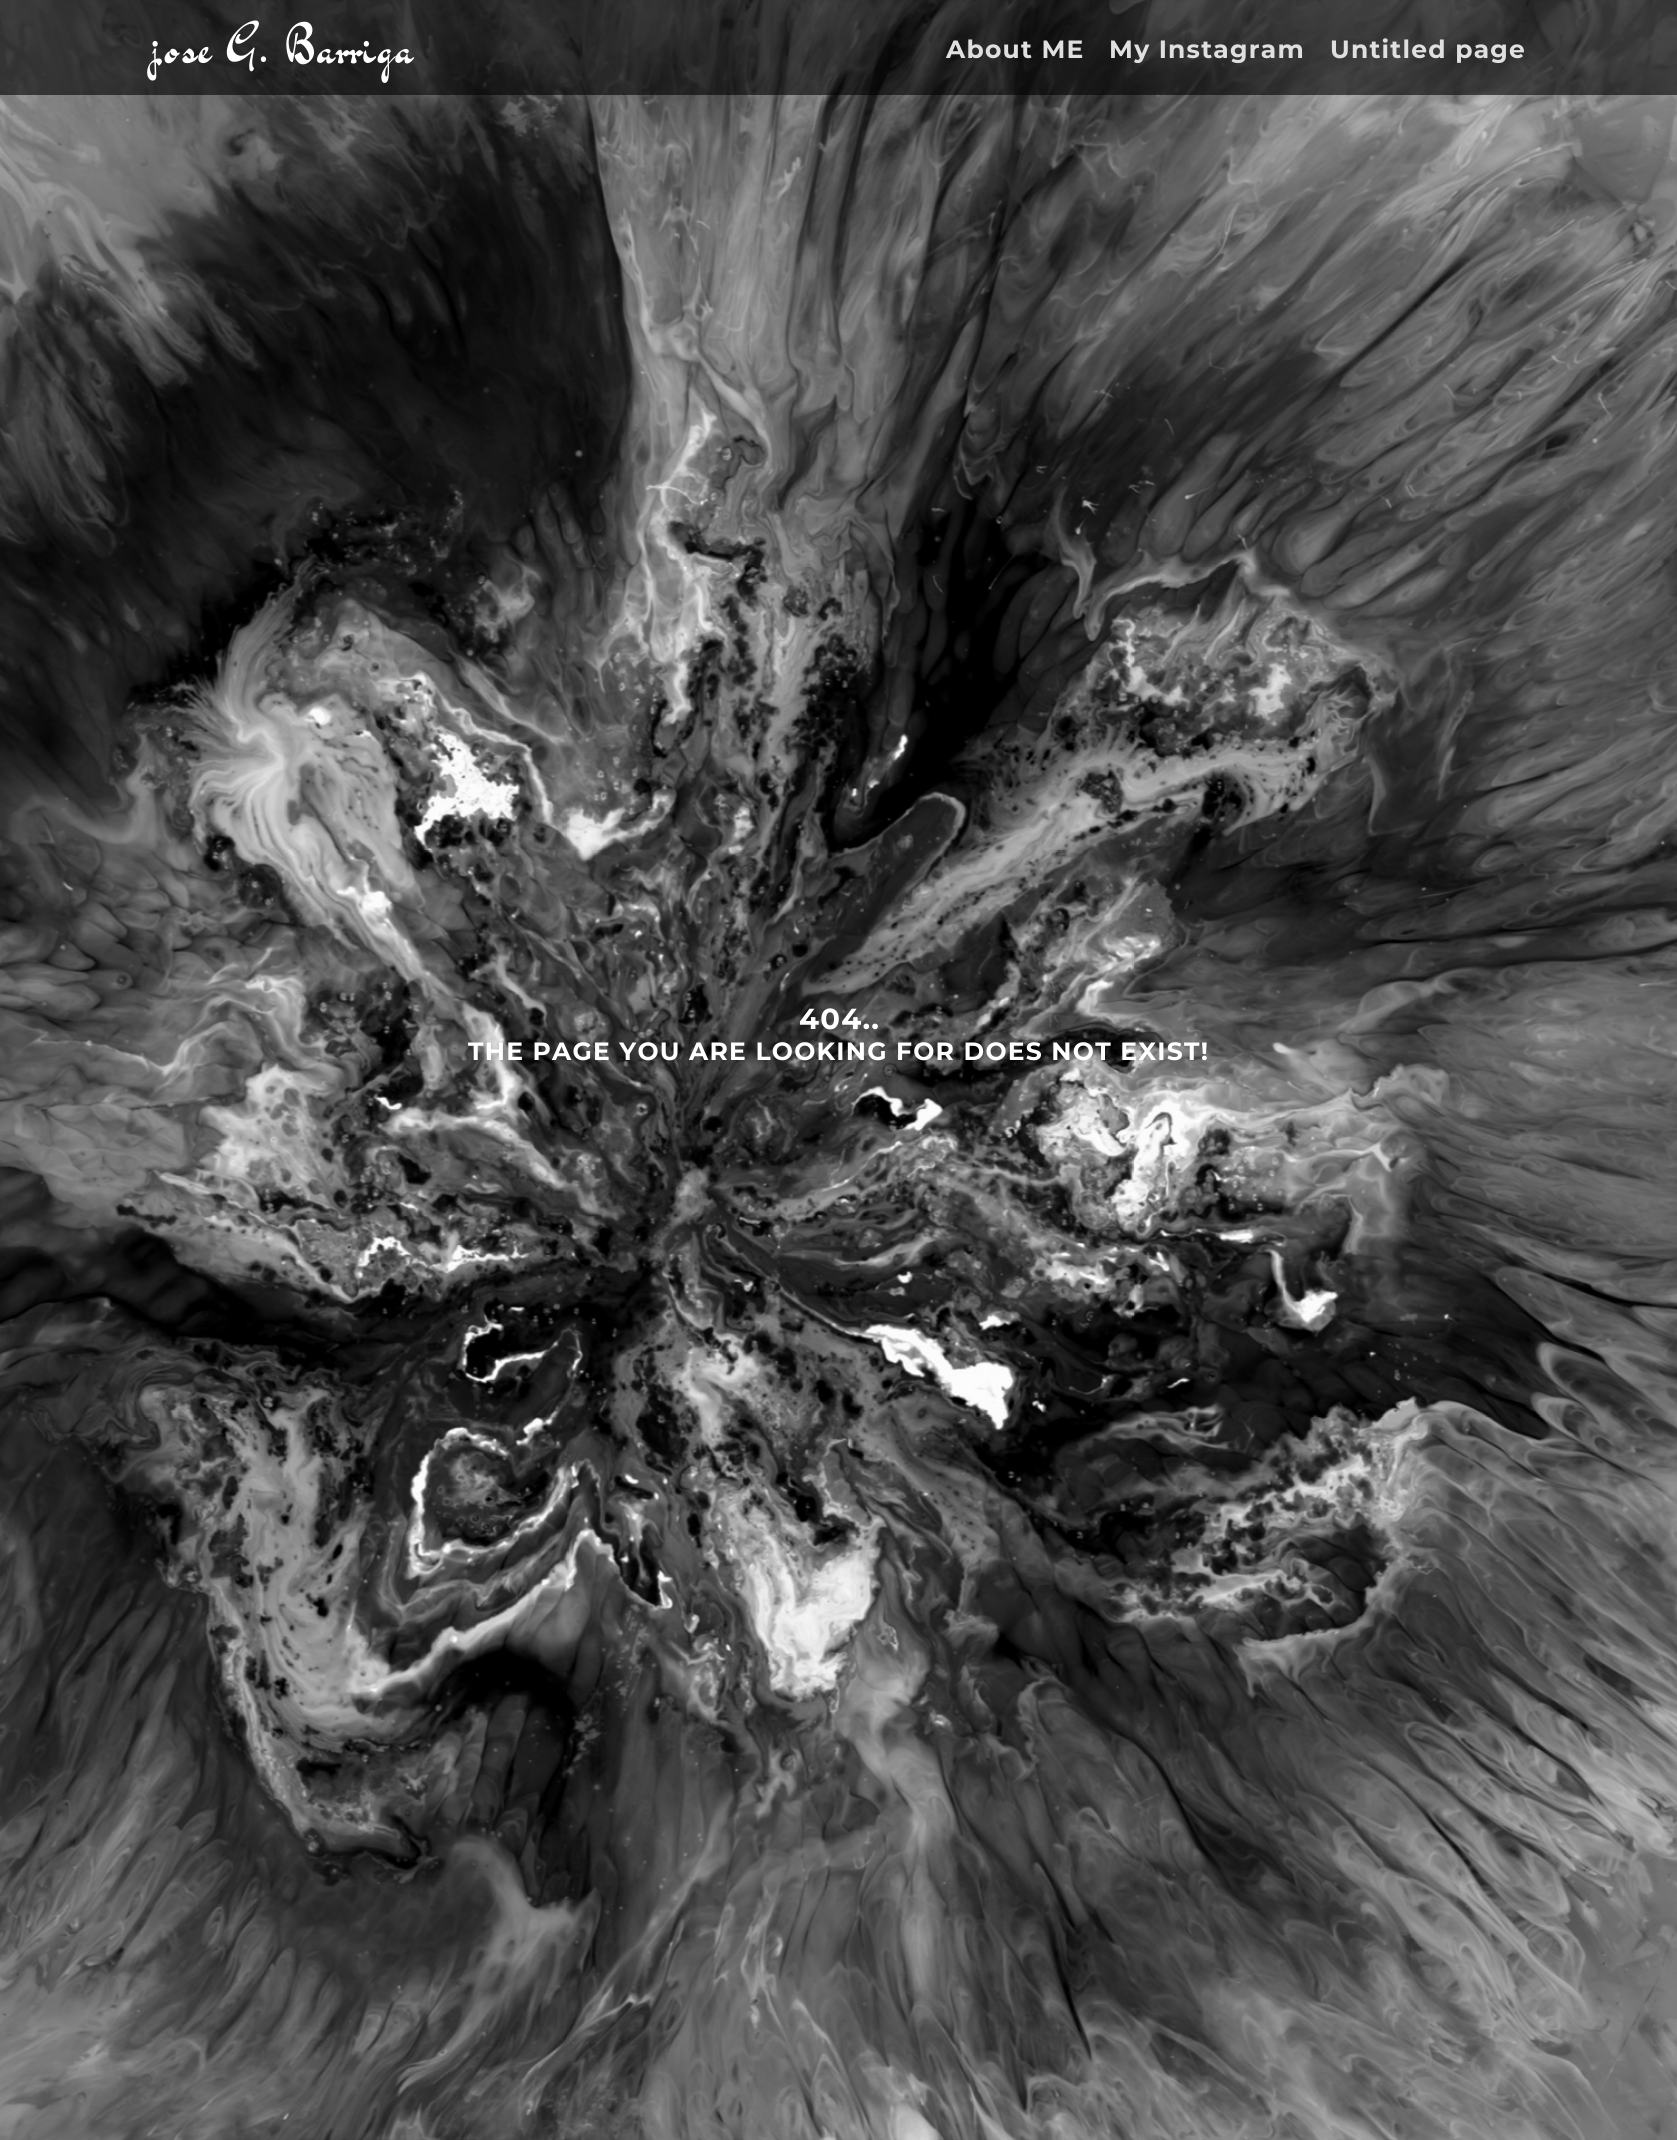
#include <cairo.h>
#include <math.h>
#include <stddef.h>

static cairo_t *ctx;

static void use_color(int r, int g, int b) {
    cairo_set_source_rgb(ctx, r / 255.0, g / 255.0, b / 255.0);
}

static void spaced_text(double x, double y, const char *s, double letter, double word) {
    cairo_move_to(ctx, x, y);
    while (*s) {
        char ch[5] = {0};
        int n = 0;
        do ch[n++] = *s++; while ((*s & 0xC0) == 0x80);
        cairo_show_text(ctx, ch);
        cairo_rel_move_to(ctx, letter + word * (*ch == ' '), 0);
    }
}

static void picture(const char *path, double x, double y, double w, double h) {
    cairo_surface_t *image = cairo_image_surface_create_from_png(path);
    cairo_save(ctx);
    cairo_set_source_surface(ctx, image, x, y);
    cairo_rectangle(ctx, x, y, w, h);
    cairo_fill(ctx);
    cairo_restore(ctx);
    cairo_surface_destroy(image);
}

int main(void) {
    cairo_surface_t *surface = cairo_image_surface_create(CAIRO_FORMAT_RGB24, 1677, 2140);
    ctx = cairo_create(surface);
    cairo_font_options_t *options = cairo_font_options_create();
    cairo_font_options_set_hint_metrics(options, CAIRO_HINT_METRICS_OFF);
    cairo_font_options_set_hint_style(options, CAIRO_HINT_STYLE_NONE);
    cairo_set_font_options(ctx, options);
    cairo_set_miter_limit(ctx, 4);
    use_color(255, 255, 255);
    cairo_paint(ctx);
    picture("img1.png", 0, 0, 1677, 2140);
    cairo_set_source_rgba(ctx, 0, 0, 0, 0.6);
    cairo_rectangle(ctx, 0, 0, 1677, 95);
    cairo_fill(ctx);
    cairo_select_font_face(ctx, "Dr Sugiyama", CAIRO_FONT_SLANT_NORMAL, CAIRO_FONT_WEIGHT_NORMAL);
    cairo_set_font_size(ctx, 48.75);
    use_color(255, 255, 255);
    spaced_text(151, 61, "jose G. Barriga", 2.5, 0);
    cairo_select_font_face(ctx, "Montserrat Thin", CAIRO_FONT_SLANT_NORMAL, CAIRO_FONT_WEIGHT_NORMAL);
    cairo_set_font_size(ctx, 25);
    use_color(224, 224, 224);
    spaced_text(946, 58, "About ME", 1.25, 0);
    spaced_text(1109, 58, "My Instagram", 1.25, 0);
    spaced_text(1330, 58, "Untitled page", 1.25, 0);
    cairo_set_font_size(ctx, 29);
    use_color(255, 255, 255);
    spaced_text(799, 1029, "404..", 1.25, 0);
    cairo_set_font_size(ctx, 25);
    spaced_text(468, 1060, "THE PAGE YOU ARE LOOKING FOR DOES NOT EXIST!", 1.25, 0);
    cairo_surface_write_to_png(surface, "result.png");
    cairo_font_options_destroy(options);
    cairo_destroy(ctx);
    cairo_surface_destroy(surface);
    return 0;
}
